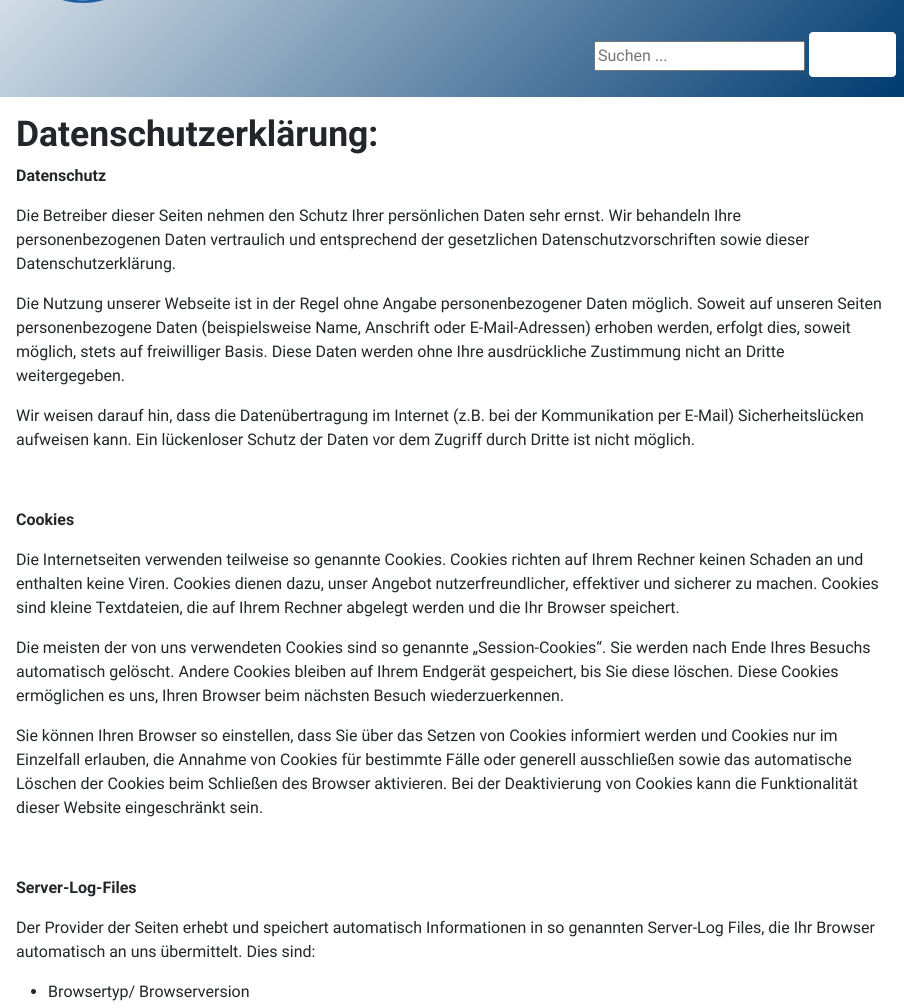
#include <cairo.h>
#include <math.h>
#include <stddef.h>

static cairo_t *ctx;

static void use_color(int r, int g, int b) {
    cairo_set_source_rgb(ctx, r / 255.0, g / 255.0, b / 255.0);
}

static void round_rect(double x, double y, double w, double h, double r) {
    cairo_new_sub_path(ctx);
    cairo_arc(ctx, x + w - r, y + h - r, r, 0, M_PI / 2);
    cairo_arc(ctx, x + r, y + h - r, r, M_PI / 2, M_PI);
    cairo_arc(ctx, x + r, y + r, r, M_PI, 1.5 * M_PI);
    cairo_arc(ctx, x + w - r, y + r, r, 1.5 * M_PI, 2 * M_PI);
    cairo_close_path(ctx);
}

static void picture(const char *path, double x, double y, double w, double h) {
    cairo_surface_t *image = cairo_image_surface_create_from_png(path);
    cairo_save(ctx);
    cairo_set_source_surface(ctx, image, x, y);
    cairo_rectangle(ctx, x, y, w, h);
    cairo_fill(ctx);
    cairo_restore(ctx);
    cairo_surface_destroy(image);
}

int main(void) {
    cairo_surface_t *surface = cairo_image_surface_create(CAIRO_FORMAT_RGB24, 904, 1008);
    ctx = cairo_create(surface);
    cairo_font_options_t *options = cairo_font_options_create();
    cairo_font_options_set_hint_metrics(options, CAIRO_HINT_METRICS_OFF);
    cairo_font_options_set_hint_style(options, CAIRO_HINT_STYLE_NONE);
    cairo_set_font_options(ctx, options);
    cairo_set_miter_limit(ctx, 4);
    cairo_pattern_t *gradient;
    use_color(255, 255, 255);
    cairo_paint(ctx);
    gradient = cairo_pattern_create_linear(148, -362, 756, 245);
    cairo_pattern_add_color_stop_rgba(gradient, 0, 1, 1, 1, 1);
    cairo_pattern_add_color_stop_rgba(gradient, 1, 0, 0.231, 0.439, 1);
    cairo_set_source(ctx, gradient);
    cairo_pattern_destroy(gradient);
    cairo_rectangle(ctx, 0, 0, 904, 97);
    cairo_fill(ctx);
    picture("img1.png", 62, 0, 42, 3);
    use_color(255, 255, 255);
    round_rect(594.5, 41.5, 210, 29, 1.5);
    cairo_fill_preserve(ctx);
    use_color(118, 118, 118);
    cairo_set_line_width(ctx, 1);
    cairo_stroke(ctx);
    cairo_select_font_face(ctx, "Roboto", CAIRO_FONT_SLANT_NORMAL, CAIRO_FONT_WEIGHT_NORMAL);
    cairo_set_font_size(ctx, 16);
    use_color(117, 117, 117);
    cairo_move_to(ctx, 598, 61);
    cairo_show_text(ctx, "Suchen ...");
    use_color(255, 255, 255);
    round_rect(809.5, 32.5, 86, 44, 3.5);
    cairo_fill_preserve(ctx);
    cairo_stroke(ctx);
    cairo_select_font_face(ctx, "Roboto", CAIRO_FONT_SLANT_NORMAL, CAIRO_FONT_WEIGHT_BOLD);
    cairo_set_font_size(ctx, 35.5);
    use_color(34, 38, 42);
    cairo_move_to(ctx, 16, 146);
    cairo_show_text(ctx, "Datenschutzerklärung:");
    cairo_set_font_size(ctx, 16);
    cairo_move_to(ctx, 16, 181);
    cairo_show_text(ctx, "Datenschutz");
    cairo_select_font_face(ctx, "Roboto", CAIRO_FONT_SLANT_NORMAL, CAIRO_FONT_WEIGHT_NORMAL);
    cairo_move_to(ctx, 16, 221);
    cairo_show_text(ctx, "Die Betreiber dieser Seiten nehmen den Schutz Ihrer persönlichen Daten sehr ernst. Wir behandeln Ihre");
    cairo_move_to(ctx, 16, 245);
    cairo_show_text(ctx, "personenbezogenen Daten vertraulich und entsprechend der gesetzlichen Datenschutzvorschriften sowie dieser");
    cairo_move_to(ctx, 16, 269);
    cairo_show_text(ctx, "Datenschutzerklärung.");
    cairo_move_to(ctx, 16, 309);
    cairo_show_text(ctx, "Die Nutzung unserer Webseite ist in der Regel ohne Angabe personenbezogener Daten möglich. Soweit auf unseren Seiten");
    cairo_move_to(ctx, 16, 333);
    cairo_show_text(ctx, "personenbezogene Daten (beispielsweise Name, Anschrift oder E-Mail-Adressen) erhoben werden, erfolgt dies, soweit");
    cairo_move_to(ctx, 16, 357);
    cairo_show_text(ctx, "möglich, stets auf freiwilliger Basis. Diese Daten werden ohne Ihre ausdrückliche Zustimmung nicht an Dritte");
    cairo_move_to(ctx, 16, 381);
    cairo_show_text(ctx, "weitergegeben.");
    cairo_move_to(ctx, 16, 421);
    cairo_show_text(ctx, "Wir weisen darauf hin, dass die Datenübertragung im Internet (z.B. bei der Kommunikation per E-Mail) Sicherheitslücken");
    cairo_move_to(ctx, 16, 445);
    cairo_show_text(ctx, "aufweisen kann. Ein lückenloser Schutz der Daten vor dem Zugriff durch Dritte ist nicht möglich.");
    cairo_select_font_face(ctx, "Roboto", CAIRO_FONT_SLANT_NORMAL, CAIRO_FONT_WEIGHT_BOLD);
    cairo_move_to(ctx, 16, 525);
    cairo_show_text(ctx, "Cookies");
    cairo_select_font_face(ctx, "Roboto", CAIRO_FONT_SLANT_NORMAL, CAIRO_FONT_WEIGHT_NORMAL);
    cairo_move_to(ctx, 16, 565);
    cairo_show_text(ctx, "Die Internetseiten verwenden teilweise so genannte Cookies. Cookies richten auf Ihrem Rechner keinen Schaden an und");
    cairo_move_to(ctx, 16, 589);
    cairo_show_text(ctx, "enthalten keine Viren. Cookies dienen dazu, unser Angebot nutzerfreundlicher, effektiver und sicherer zu machen. Cookies");
    cairo_move_to(ctx, 16, 613);
    cairo_show_text(ctx, "sind kleine Textdateien, die auf Ihrem Rechner abgelegt werden und die Ihr Browser speichert.");
    cairo_move_to(ctx, 16, 653);
    cairo_show_text(ctx, "Die meisten der von uns verwendeten Cookies sind so genannte „Session-Cookies“. Sie werden nach Ende Ihres Besuchs");
    cairo_move_to(ctx, 16, 677);
    cairo_show_text(ctx, "automatisch gelöscht. Andere Cookies bleiben auf Ihrem Endgerät gespeichert, bis Sie diese löschen. Diese Cookies");
    cairo_move_to(ctx, 16, 701);
    cairo_show_text(ctx, "ermöglichen es uns, Ihren Browser beim nächsten Besuch wiederzuerkennen.");
    cairo_move_to(ctx, 16, 741);
    cairo_show_text(ctx, "Sie können Ihren Browser so einstellen, dass Sie über das Setzen von Cookies informiert werden und Cookies nur im");
    cairo_move_to(ctx, 16, 765);
    cairo_show_text(ctx, "Einzelfall erlauben, die Annahme von Cookies für bestimmte Fälle oder generell ausschließen sowie das automatische");
    cairo_move_to(ctx, 16, 789);
    cairo_show_text(ctx, "Löschen der Cookies beim Schließen des Browser aktivieren. Bei der Deaktivierung von Cookies kann die Funktionalität");
    cairo_move_to(ctx, 16, 813);
    cairo_show_text(ctx, "dieser Website eingeschränkt sein.");
    cairo_select_font_face(ctx, "Roboto", CAIRO_FONT_SLANT_NORMAL, CAIRO_FONT_WEIGHT_BOLD);
    cairo_move_to(ctx, 16, 893);
    cairo_show_text(ctx, "Server-Log-Files");
    cairo_select_font_face(ctx, "Roboto", CAIRO_FONT_SLANT_NORMAL, CAIRO_FONT_WEIGHT_NORMAL);
    cairo_move_to(ctx, 16, 933);
    cairo_show_text(ctx, "Der Provider der Seiten erhebt und speichert automatisch Informationen in so genannten Server-Log Files, die Ihr Browser");
    cairo_move_to(ctx, 16, 957);
    cairo_show_text(ctx, "automatisch an uns übermittelt. Dies sind:");
    cairo_new_path(ctx);
    cairo_arc(ctx, 33.5, 991.5, 2.5, 0, 2 * M_PI);
    cairo_fill(ctx);
    cairo_move_to(ctx, 48, 997);
    cairo_show_text(ctx, "Browsertyp/ Browserversion");
    cairo_surface_write_to_png(surface, "result.png");
    cairo_font_options_destroy(options);
    cairo_destroy(ctx);
    cairo_surface_destroy(surface);
    return 0;
}
